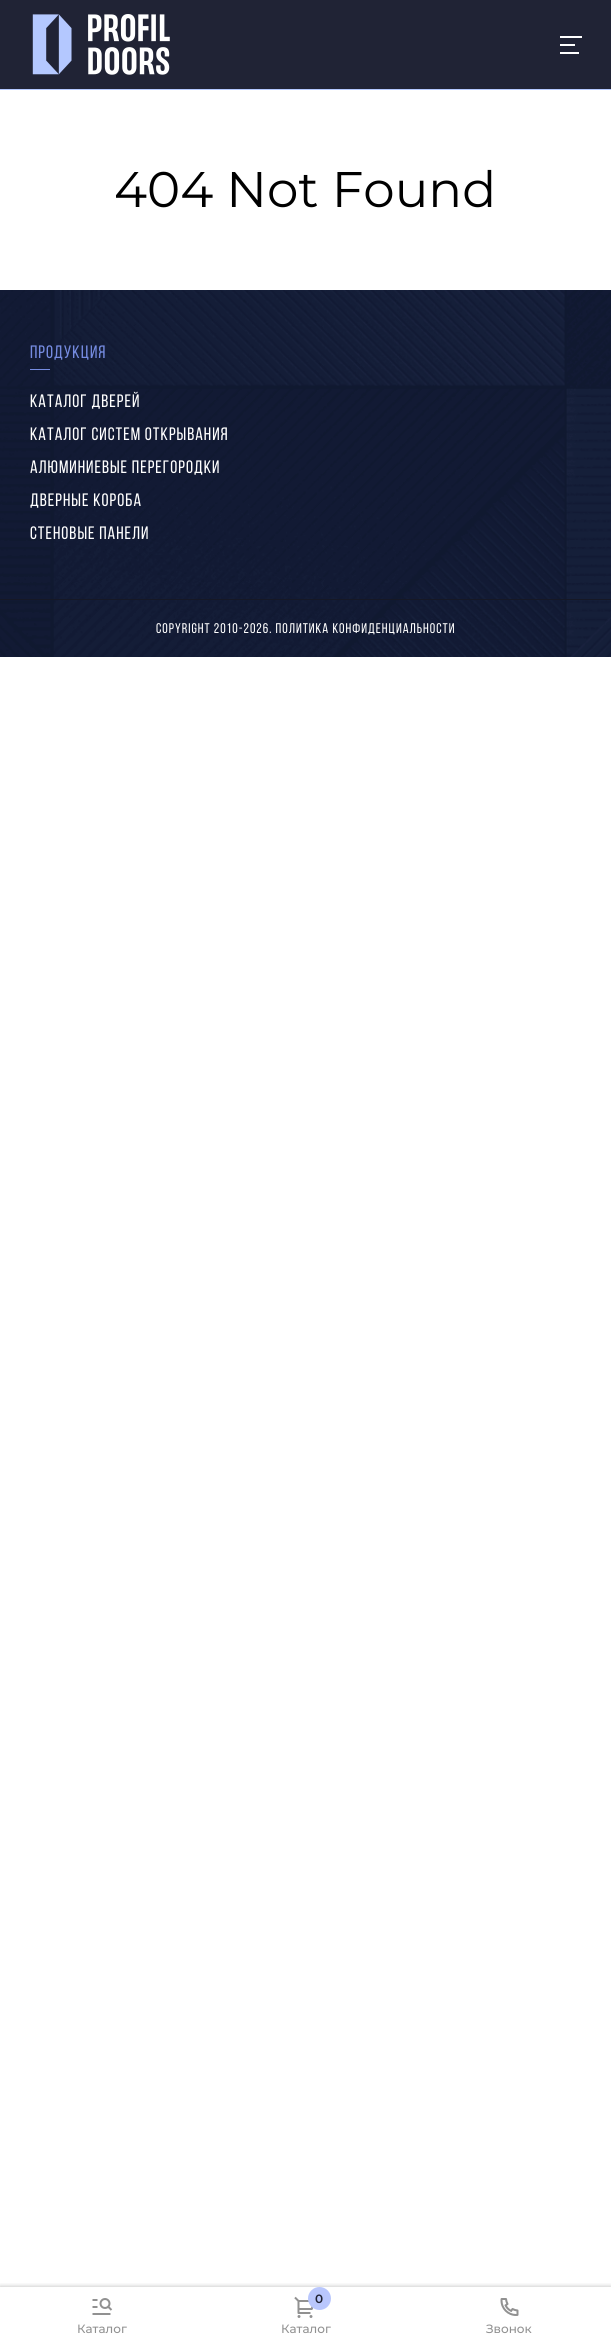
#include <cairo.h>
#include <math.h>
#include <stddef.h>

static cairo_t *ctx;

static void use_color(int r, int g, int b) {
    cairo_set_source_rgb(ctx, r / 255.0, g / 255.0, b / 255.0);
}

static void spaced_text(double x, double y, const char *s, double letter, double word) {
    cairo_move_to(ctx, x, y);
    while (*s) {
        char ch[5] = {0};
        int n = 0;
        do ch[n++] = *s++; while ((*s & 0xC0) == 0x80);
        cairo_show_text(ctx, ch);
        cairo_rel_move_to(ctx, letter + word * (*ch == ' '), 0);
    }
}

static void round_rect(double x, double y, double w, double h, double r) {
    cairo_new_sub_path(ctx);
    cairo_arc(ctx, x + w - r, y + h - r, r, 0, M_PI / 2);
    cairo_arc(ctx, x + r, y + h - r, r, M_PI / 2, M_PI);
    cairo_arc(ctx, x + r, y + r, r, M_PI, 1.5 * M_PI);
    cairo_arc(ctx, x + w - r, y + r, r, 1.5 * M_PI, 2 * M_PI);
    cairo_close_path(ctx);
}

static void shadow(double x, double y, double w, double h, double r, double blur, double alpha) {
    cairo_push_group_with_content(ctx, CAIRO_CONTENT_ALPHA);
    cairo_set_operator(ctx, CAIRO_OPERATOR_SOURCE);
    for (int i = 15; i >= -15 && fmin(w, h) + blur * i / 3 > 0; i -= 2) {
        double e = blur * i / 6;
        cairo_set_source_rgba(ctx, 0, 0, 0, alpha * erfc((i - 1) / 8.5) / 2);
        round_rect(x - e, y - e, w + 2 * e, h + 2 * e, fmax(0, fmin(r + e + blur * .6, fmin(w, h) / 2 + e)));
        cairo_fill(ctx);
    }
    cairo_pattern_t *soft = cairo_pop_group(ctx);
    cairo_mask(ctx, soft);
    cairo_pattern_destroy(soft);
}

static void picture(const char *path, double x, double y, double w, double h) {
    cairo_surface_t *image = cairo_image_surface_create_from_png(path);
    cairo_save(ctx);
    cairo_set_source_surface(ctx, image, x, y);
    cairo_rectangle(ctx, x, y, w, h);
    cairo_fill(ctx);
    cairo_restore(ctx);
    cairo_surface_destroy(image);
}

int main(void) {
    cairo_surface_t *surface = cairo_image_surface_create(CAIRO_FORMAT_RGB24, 611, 2342);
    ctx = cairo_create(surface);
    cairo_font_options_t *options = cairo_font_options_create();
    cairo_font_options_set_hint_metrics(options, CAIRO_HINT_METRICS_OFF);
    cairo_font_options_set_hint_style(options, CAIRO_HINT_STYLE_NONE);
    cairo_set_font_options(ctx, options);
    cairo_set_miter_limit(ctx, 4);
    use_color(255, 255, 255);
    cairo_paint(ctx);
    use_color(32, 35, 53);
    cairo_rectangle(ctx, 0, 0, 611, 89);
    cairo_fill(ctx);
    use_color(180, 200, 255);
    cairo_rectangle(ctx, 0, 89, 611, 1);
    cairo_fill(ctx);
    picture("img1.png", 32, 14, 138, 61);
    use_color(255, 255, 255);
    cairo_rectangle(ctx, 560, 44, 15, 2);
    cairo_fill(ctx);
    cairo_rectangle(ctx, 560, 36, 22, 2);
    cairo_fill(ctx);
    cairo_rectangle(ctx, 560, 52, 19, 2);
    cairo_fill(ctx);
    cairo_select_font_face(ctx, "Montserrat", CAIRO_FONT_SLANT_NORMAL, CAIRO_FONT_WEIGHT_NORMAL);
    cairo_set_font_size(ctx, 50);
    use_color(0, 0, 0);
    cairo_move_to(ctx, 114, 207);
    cairo_show_text(ctx, "404 Not Found");
    picture("img2.png", 0, 290, 611, 367);
    cairo_select_font_face(ctx, "Bebas Neue", CAIRO_FONT_SLANT_NORMAL, CAIRO_FONT_WEIGHT_NORMAL);
    cairo_set_font_size(ctx, 18);
    use_color(117, 139, 224);
    spaced_text(30, 358, "ПРОДУКЦИЯ", 1, 0);
    cairo_rectangle(ctx, 30, 369, 20, 1);
    cairo_fill(ctx);
    use_color(255, 255, 255);
    spaced_text(30, 407, "КАТАЛОГ ДВЕРЕЙ", 1, 0);
    spaced_text(30, 440, "КАТАЛОГ СИСТЕМ ОТКРЫВАНИЯ", 1, 0);
    spaced_text(30, 473, "АЛЮМИНИЕВЫЕ ПЕРЕГОРОДКИ", 1, 0);
    spaced_text(30, 506, "ДВЕРНЫЕ КОРОБА", 1, 0);
    spaced_text(30, 539, "СТЕНОВЫЕ ПАНЕЛИ", 1, 0);
    use_color(22, 24, 37);
    cairo_rectangle(ctx, 0, 599, 611, 1);
    cairo_fill(ctx);
    cairo_set_font_size(ctx, 14);
    use_color(255, 255, 255);
    spaced_text(156, 633, "COPYRIGHT 2010-2026. ПОЛИТИКА КОНФИДЕНЦИАЛЬНОСТИ", 1, 0);
    cairo_save(ctx);
    cairo_rectangle(ctx, 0, 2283, 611, 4);
    cairo_clip(ctx);
    use_color(0, 0, 0);
    shadow(0, 2286, 611, 55, 0, 2, 0.2);
    cairo_restore(ctx);
    picture("img3.png", 92, 2298, 21, 17);
    cairo_select_font_face(ctx, "Montserrat Medium", CAIRO_FONT_SLANT_NORMAL, CAIRO_FONT_WEIGHT_NORMAL);
    cairo_set_font_size(ctx, 12);
    use_color(145, 145, 145);
    cairo_move_to(ctx, 77, 2333);
    cairo_show_text(ctx, "Каталог");
    picture("img4.png", 294, 2296, 19, 22);
    use_color(185, 199, 253);
    cairo_arc(ctx, 319.5, 2298.5, 11.5, 0, 2 * M_PI);
    cairo_fill(ctx);
    cairo_select_font_face(ctx, "Montserrat SemiBold", CAIRO_FONT_SLANT_NORMAL, CAIRO_FONT_WEIGHT_NORMAL);
    use_color(32, 35, 53);
    cairo_move_to(ctx, 315, 2303);
    cairo_show_text(ctx, "0");
    cairo_select_font_face(ctx, "Montserrat Medium", CAIRO_FONT_SLANT_NORMAL, CAIRO_FONT_WEIGHT_NORMAL);
    use_color(145, 145, 145);
    cairo_move_to(ctx, 281, 2333);
    cairo_show_text(ctx, "Каталог");
    picture("img5.png", 500, 2298, 19, 18);
    cairo_move_to(ctx, 486, 2333);
    cairo_show_text(ctx, "Звонок");
    cairo_surface_write_to_png(surface, "result.png");
    cairo_font_options_destroy(options);
    cairo_destroy(ctx);
    cairo_surface_destroy(surface);
    return 0;
}
